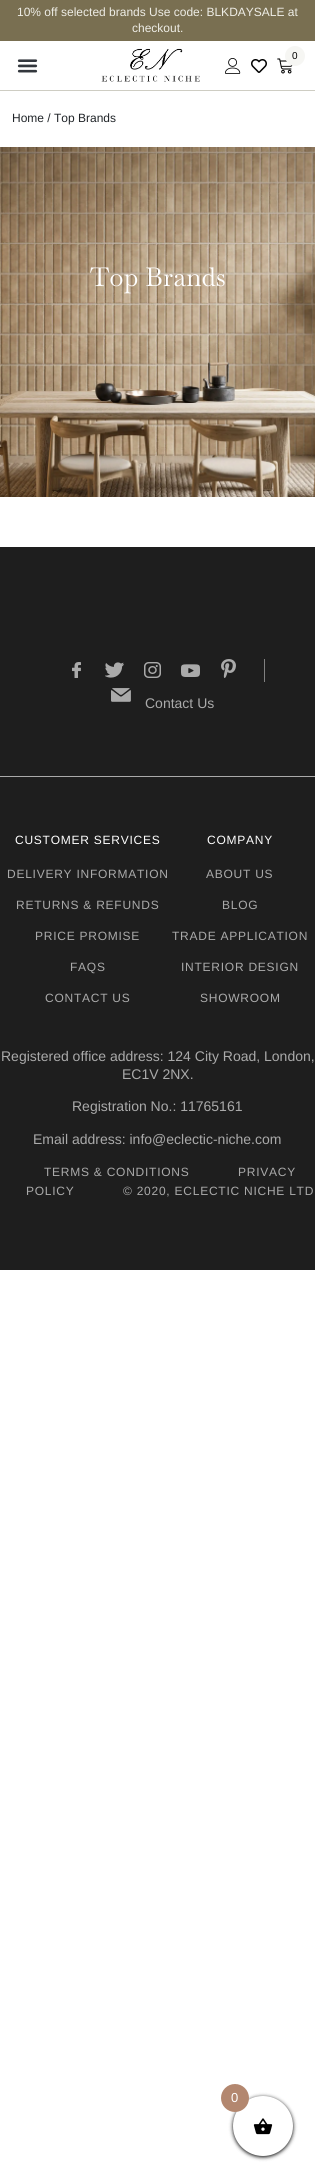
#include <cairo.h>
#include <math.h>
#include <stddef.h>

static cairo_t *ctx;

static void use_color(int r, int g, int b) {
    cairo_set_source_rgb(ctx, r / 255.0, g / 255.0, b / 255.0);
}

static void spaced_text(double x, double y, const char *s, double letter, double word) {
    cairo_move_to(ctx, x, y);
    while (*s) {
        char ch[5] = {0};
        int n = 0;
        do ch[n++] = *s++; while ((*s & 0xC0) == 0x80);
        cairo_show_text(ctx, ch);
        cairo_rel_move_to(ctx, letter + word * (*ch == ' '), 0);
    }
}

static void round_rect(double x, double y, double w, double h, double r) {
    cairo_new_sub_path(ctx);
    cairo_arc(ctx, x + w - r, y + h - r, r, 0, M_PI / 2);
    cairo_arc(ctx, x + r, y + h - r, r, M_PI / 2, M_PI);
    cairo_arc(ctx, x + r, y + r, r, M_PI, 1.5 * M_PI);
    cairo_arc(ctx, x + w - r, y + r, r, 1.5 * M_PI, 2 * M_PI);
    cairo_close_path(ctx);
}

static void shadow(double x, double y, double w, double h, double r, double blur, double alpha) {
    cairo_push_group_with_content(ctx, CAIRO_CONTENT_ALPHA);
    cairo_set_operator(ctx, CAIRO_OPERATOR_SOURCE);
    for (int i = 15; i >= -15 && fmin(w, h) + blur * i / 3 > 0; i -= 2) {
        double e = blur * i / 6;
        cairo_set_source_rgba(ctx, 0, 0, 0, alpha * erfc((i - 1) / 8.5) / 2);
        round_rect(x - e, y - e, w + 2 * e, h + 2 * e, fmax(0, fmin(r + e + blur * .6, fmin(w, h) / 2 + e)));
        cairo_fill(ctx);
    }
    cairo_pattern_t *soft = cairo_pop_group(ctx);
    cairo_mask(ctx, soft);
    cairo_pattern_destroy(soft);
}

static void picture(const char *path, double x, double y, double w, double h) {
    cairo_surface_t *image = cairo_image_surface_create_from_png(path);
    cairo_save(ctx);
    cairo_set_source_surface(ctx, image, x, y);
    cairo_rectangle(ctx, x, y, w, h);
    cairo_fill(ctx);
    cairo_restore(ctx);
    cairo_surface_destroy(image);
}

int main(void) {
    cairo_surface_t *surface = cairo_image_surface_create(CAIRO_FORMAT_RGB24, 315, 2178);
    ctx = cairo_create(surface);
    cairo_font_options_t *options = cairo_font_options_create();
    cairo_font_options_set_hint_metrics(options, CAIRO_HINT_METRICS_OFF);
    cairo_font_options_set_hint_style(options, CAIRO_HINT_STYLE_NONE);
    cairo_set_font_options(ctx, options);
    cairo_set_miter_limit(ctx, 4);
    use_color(255, 255, 255);
    cairo_paint(ctx);
    use_color(121, 111, 81);
    cairo_rectangle(ctx, 0, 0, 315, 41);
    cairo_fill(ctx);
    cairo_select_font_face(ctx, "Liberation Sans", CAIRO_FONT_SLANT_NORMAL, CAIRO_FONT_WEIGHT_NORMAL);
    cairo_set_font_size(ctx, 12);
    use_color(238, 237, 230);
    cairo_move_to(ctx, 17, 16);
    cairo_show_text(ctx, "10% off selected brands Use code: BLKDAYSALE at");
    cairo_move_to(ctx, 132, 32);
    cairo_show_text(ctx, "checkout.");
    use_color(206, 205, 195);
    cairo_rectangle(ctx, 0, 90, 315, 1);
    cairo_fill(ctx);
    picture("img1.png", 101, 48, 99, 34);
    picture("img2.png", 277, 58, 16, 16);
    use_color(246, 246, 243);
    cairo_arc(ctx, 295, 56, 10, 0, 2 * M_PI);
    cairo_fill(ctx);
    cairo_set_font_size(ctx, 10);
    use_color(0, 0, 0);
    cairo_move_to(ctx, 292, 59);
    cairo_show_text(ctx, "0");
    picture("img3.png", 225, 58, 16, 16);
    picture("img4.png", 251, 59, 16, 14);
    picture("img5.png", 17, 59, 21, 14);
    cairo_set_font_size(ctx, 12);
    use_color(33, 37, 41);
    cairo_move_to(ctx, 12, 122);
    cairo_show_text(ctx, "Home / Top Brands");
    picture("img6.png", 0, 147, 315, 350);
    cairo_select_font_face(ctx, "Baskervville", CAIRO_FONT_SLANT_NORMAL, CAIRO_FONT_WEIGHT_NORMAL);
    cairo_set_font_size(ctx, 26);
    use_color(255, 255, 255);
    cairo_move_to(ctx, 90, 286);
    cairo_show_text(ctx, "Top Brands");
    use_color(30, 30, 30);
    cairo_rectangle(ctx, 0, 547, 315, 723);
    cairo_fill(ctx);
    use_color(128, 128, 128);
    cairo_rectangle(ctx, 264, 659, 1, 23);
    cairo_fill(ctx);
    picture("img7.png", 72, 662, 9, 16);
    picture("img8.png", 105, 662, 19, 16);
    picture("img9.png", 144, 662, 17, 16);
    picture("img10.png", 181, 664, 19, 13);
    picture("img11.png", 221, 659, 15, 19);
    picture("img12.png", 111, 688, 20, 14);
    cairo_select_font_face(ctx, "Liberation Sans", CAIRO_FONT_SLANT_NORMAL, CAIRO_FONT_WEIGHT_NORMAL);
    cairo_set_font_size(ctx, 14);
    use_color(170, 170, 170);
    cairo_move_to(ctx, 145, 708);
    cairo_show_text(ctx, "Contact Us");
    cairo_rectangle(ctx, 0, 776, 315, 1);
    cairo_fill(ctx);
    cairo_set_font_size(ctx, 12);
    use_color(255, 255, 255);
    spaced_text(15, 844, "CUSTOMER SERVICES", 0.75, 0);
    use_color(170, 170, 170);
    spaced_text(7, 878, "DELIVERY INFORMATION", 0.75, 0);
    spaced_text(16, 909, "RETURNS & REFUNDS", 0.75, 0);
    spaced_text(35, 940, "PRICE PROMISE", 0.75, 0);
    spaced_text(70, 971, "FAQS", 0.75, 0);
    spaced_text(45, 1002, "CONTACT US", 0.75, 0);
    use_color(255, 255, 255);
    spaced_text(207, 844, "COMPANY", 0.75, 0);
    use_color(170, 170, 170);
    spaced_text(206, 878, "ABOUT US", 0.75, 0);
    spaced_text(222, 909, "BLOG", 0.75, 0);
    spaced_text(172, 940, "TRADE APPLICATION", 0.75, 0);
    spaced_text(181, 971, "INTERIOR DESIGN", 0.75, 0);
    spaced_text(200, 1002, "SHOWROOM", 0.75, 0);
    cairo_set_font_size(ctx, 14);
    cairo_move_to(ctx, 1, 1061);
    cairo_show_text(ctx, "Registered office address: 124 City Road, London,");
    cairo_move_to(ctx, 122, 1079);
    cairo_show_text(ctx, "EC1V 2NX.");
    cairo_move_to(ctx, 72, 1111);
    cairo_show_text(ctx, "Registration No.: 11765161");
    cairo_move_to(ctx, 33, 1144);
    cairo_show_text(ctx, "Email address: info@eclectic-niche.com");
    cairo_set_font_size(ctx, 12);
    spaced_text(44, 1176, "TERMS & CONDITIONS", 0.75, 0);
    spaced_text(238, 1176, "PRIVACY", 0.75, 0);
    spaced_text(26, 1195, "POLICY", 0.75, 0);
    spaced_text(123, 1195, "© 2020, ECLECTIC NICHE LTD", 0.75, 0);
    use_color(0, 0, 0);
    shadow(233, 2097, 60, 60, 30, 2, 1);
    use_color(255, 255, 255);
    cairo_arc(ctx, 263, 2126, 30, 0, 2 * M_PI);
    cairo_fill(ctx);
    use_color(179, 135, 111);
    cairo_arc(ctx, 235, 2098, 14, 0, 2 * M_PI);
    cairo_fill(ctx);
    cairo_set_font_size(ctx, 13);
    use_color(255, 255, 255);
    cairo_move_to(ctx, 231, 2102);
    cairo_show_text(ctx, "0");
    picture("img13.png", 253, 2118, 20, 17);
    cairo_surface_write_to_png(surface, "result.png");
    cairo_font_options_destroy(options);
    cairo_destroy(ctx);
    cairo_surface_destroy(surface);
    return 0;
}
